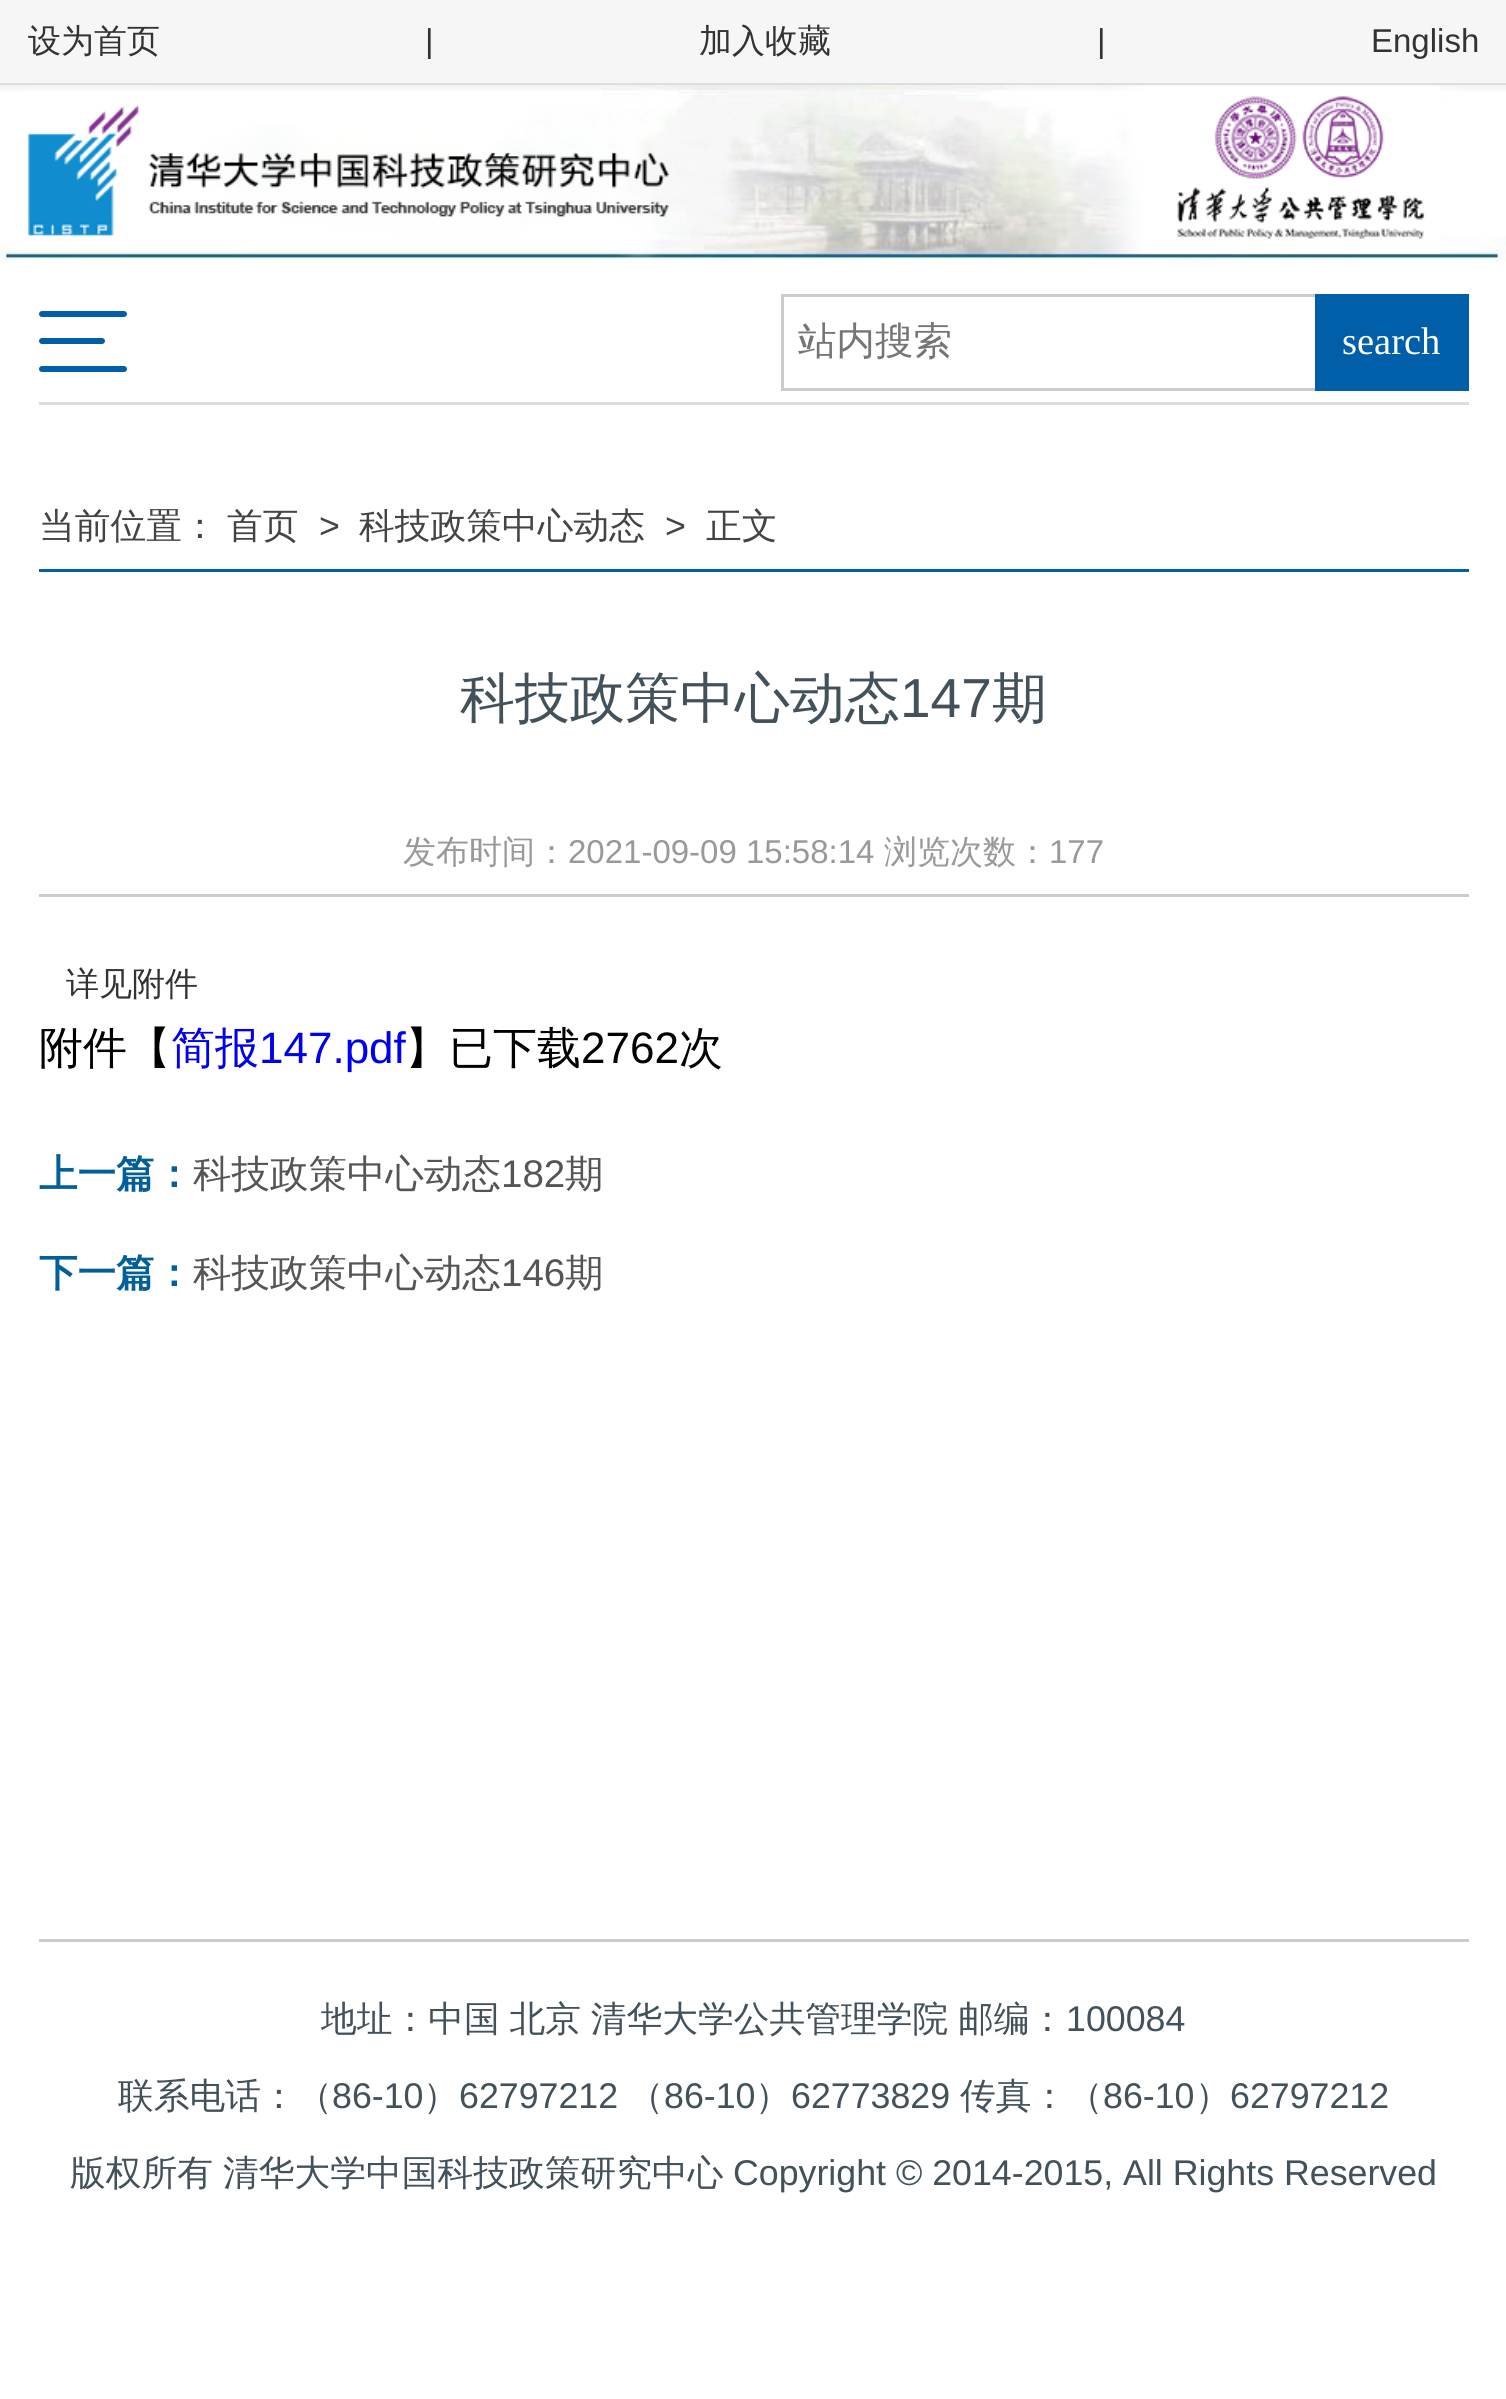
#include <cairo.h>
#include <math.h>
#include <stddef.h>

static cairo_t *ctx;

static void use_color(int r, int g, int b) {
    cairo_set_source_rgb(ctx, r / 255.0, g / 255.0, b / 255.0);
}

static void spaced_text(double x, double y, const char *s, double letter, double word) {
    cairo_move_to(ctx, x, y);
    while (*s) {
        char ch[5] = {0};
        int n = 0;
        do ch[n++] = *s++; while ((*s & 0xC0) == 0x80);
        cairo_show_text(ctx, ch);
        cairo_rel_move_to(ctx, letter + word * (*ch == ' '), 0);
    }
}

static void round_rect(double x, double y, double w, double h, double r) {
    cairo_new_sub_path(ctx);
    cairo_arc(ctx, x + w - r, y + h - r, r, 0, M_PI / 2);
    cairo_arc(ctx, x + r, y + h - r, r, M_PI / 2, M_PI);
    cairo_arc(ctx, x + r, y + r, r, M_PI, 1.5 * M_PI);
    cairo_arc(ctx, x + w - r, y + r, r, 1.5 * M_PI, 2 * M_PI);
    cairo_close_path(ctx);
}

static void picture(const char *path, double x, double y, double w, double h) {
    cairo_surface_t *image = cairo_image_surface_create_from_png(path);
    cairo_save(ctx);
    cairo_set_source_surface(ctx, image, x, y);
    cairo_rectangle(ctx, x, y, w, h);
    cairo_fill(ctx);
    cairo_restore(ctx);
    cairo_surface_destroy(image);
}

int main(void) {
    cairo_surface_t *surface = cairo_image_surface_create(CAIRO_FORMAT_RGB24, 1506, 2399);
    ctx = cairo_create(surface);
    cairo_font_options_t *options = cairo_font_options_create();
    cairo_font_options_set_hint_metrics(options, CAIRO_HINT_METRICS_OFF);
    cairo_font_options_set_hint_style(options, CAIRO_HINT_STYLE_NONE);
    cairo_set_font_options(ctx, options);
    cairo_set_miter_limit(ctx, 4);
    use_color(255, 255, 255);
    cairo_paint(ctx);
    use_color(246, 246, 246);
    cairo_rectangle(ctx, 0, 0, 1506, 83);
    cairo_fill(ctx);
    use_color(222, 222, 222);
    cairo_rectangle(ctx, 0, 83, 1506, 3);
    cairo_fill(ctx);
    cairo_select_font_face(ctx, "WenQuanYi Zen Hei Medium", CAIRO_FONT_SLANT_NORMAL, CAIRO_FONT_WEIGHT_NORMAL);
    cairo_set_font_size(ctx, 33);
    use_color(51, 51, 51);
    cairo_move_to(ctx, 28, 52);
    cairo_show_text(ctx, "设为首页");
    cairo_select_font_face(ctx, "Liberation Sans", CAIRO_FONT_SLANT_NORMAL, CAIRO_FONT_WEIGHT_NORMAL);
    cairo_move_to(ctx, 425, 52);
    cairo_show_text(ctx, "|");
    cairo_select_font_face(ctx, "WenQuanYi Zen Hei Medium", CAIRO_FONT_SLANT_NORMAL, CAIRO_FONT_WEIGHT_NORMAL);
    cairo_move_to(ctx, 699, 52);
    cairo_show_text(ctx, "加入收藏");
    cairo_select_font_face(ctx, "Liberation Sans", CAIRO_FONT_SLANT_NORMAL, CAIRO_FONT_WEIGHT_NORMAL);
    cairo_move_to(ctx, 1097, 52);
    cairo_show_text(ctx, "|");
    cairo_move_to(ctx, 1371, 52);
    cairo_show_text(ctx, "English");
    picture("img1.png", 0, 85, 1506, 178);
    use_color(221, 221, 221);
    cairo_rectangle(ctx, 39, 402, 1430, 3);
    cairo_fill(ctx);
    use_color(1, 95, 169);
    round_rect(39, 311, 88, 6, 3);
    cairo_fill(ctx);
    round_rect(39, 338, 66, 6, 3);
    cairo_fill(ctx);
    round_rect(39, 366, 88, 6, 3);
    cairo_fill(ctx);
    use_color(204, 204, 204);
    cairo_rectangle(ctx, 781, 294, 534, 3);
    cairo_fill(ctx);
    cairo_rectangle(ctx, 781, 388, 534, 3);
    cairo_fill(ctx);
    cairo_rectangle(ctx, 781, 294, 3, 97);
    cairo_fill(ctx);
    cairo_save(ctx);
    cairo_rectangle(ctx, 798, 319, 517, 50);
    cairo_clip(ctx);
    cairo_select_font_face(ctx, "WenQuanYi Zen Hei Medium", CAIRO_FONT_SLANT_NORMAL, CAIRO_FONT_WEIGHT_NORMAL);
    cairo_set_font_size(ctx, 38.5);
    use_color(117, 117, 117);
    cairo_move_to(ctx, 798, 354);
    cairo_show_text(ctx, "站内搜索");
    cairo_restore(ctx);
    use_color(1, 95, 169);
    cairo_rectangle(ctx, 1315, 294, 154, 97);
    cairo_fill(ctx);
    cairo_select_font_face(ctx, "Liberation Serif", CAIRO_FONT_SLANT_NORMAL, CAIRO_FONT_WEIGHT_NORMAL);
    cairo_set_font_size(ctx, 38.5);
    use_color(255, 255, 255);
    cairo_move_to(ctx, 1342, 354);
    cairo_show_text(ctx, "search");
    use_color(1, 95, 169);
    cairo_rectangle(ctx, 39, 569, 1430, 3);
    cairo_fill(ctx);
    cairo_select_font_face(ctx, "WenQuanYi Zen Hei Medium", CAIRO_FONT_SLANT_NORMAL, CAIRO_FONT_WEIGHT_NORMAL);
    cairo_set_font_size(ctx, 35.75);
    use_color(68, 68, 68);
    cairo_move_to(ctx, 39, 538);
    cairo_show_text(ctx, "当前位置：");
    cairo_move_to(ctx, 227, 538);
    cairo_show_text(ctx, "首页");
    cairo_select_font_face(ctx, "Liberation Sans", CAIRO_FONT_SLANT_NORMAL, CAIRO_FONT_WEIGHT_NORMAL);
    cairo_move_to(ctx, 319, 538);
    cairo_show_text(ctx, ">");
    cairo_select_font_face(ctx, "WenQuanYi Zen Hei Medium", CAIRO_FONT_SLANT_NORMAL, CAIRO_FONT_WEIGHT_NORMAL);
    cairo_move_to(ctx, 359, 538);
    cairo_show_text(ctx, "科技政策中心动态");
    cairo_select_font_face(ctx, "Liberation Sans", CAIRO_FONT_SLANT_NORMAL, CAIRO_FONT_WEIGHT_NORMAL);
    cairo_move_to(ctx, 665, 538);
    cairo_show_text(ctx, ">");
    cairo_select_font_face(ctx, "WenQuanYi Zen Hei Medium", CAIRO_FONT_SLANT_NORMAL, CAIRO_FONT_WEIGHT_NORMAL);
    cairo_move_to(ctx, 706, 538);
    cairo_show_text(ctx, "正文");
    cairo_set_font_size(ctx, 55);
    use_color(66, 81, 90);
    cairo_move_to(ctx, 460, 717);
    cairo_show_text(ctx, "科技政策中心动态");
    cairo_select_font_face(ctx, "Liberation Sans", CAIRO_FONT_SLANT_NORMAL, CAIRO_FONT_WEIGHT_NORMAL);
    cairo_move_to(ctx, 900, 717);
    cairo_show_text(ctx, "147");
    cairo_select_font_face(ctx, "WenQuanYi Zen Hei Medium", CAIRO_FONT_SLANT_NORMAL, CAIRO_FONT_WEIGHT_NORMAL);
    cairo_move_to(ctx, 992, 717);
    cairo_show_text(ctx, "期");
    use_color(204, 204, 204);
    cairo_rectangle(ctx, 39, 894, 1430, 3);
    cairo_fill(ctx);
    cairo_set_font_size(ctx, 33);
    use_color(153, 153, 153);
    cairo_move_to(ctx, 403, 863);
    cairo_show_text(ctx, "发布时间：");
    cairo_select_font_face(ctx, "Liberation Sans", CAIRO_FONT_SLANT_NORMAL, CAIRO_FONT_WEIGHT_NORMAL);
    cairo_move_to(ctx, 568, 863);
    cairo_show_text(ctx, "2021-09-09 15:58:14");
    cairo_select_font_face(ctx, "WenQuanYi Zen Hei Medium", CAIRO_FONT_SLANT_NORMAL, CAIRO_FONT_WEIGHT_NORMAL);
    cairo_move_to(ctx, 884, 863);
    cairo_show_text(ctx, "浏览次数：");
    cairo_select_font_face(ctx, "Liberation Sans", CAIRO_FONT_SLANT_NORMAL, CAIRO_FONT_WEIGHT_NORMAL);
    cairo_move_to(ctx, 1049, 863);
    cairo_show_text(ctx, "177");
    cairo_select_font_face(ctx, "WenQuanYi Zen Hei Medium", CAIRO_FONT_SLANT_NORMAL, CAIRO_FONT_WEIGHT_NORMAL);
    use_color(51, 51, 51);
    cairo_move_to(ctx, 66, 995);
    cairo_show_text(ctx, "详见附件");
    cairo_set_font_size(ctx, 44);
    use_color(0, 0, 0);
    cairo_move_to(ctx, 39, 1063);
    cairo_show_text(ctx, "附件【");
    use_color(0, 0, 238);
    cairo_move_to(ctx, 171, 1063);
    cairo_show_text(ctx, "简报");
    cairo_select_font_face(ctx, "Liberation Sans", CAIRO_FONT_SLANT_NORMAL, CAIRO_FONT_WEIGHT_NORMAL);
    cairo_move_to(ctx, 259, 1063);
    cairo_show_text(ctx, "147.pdf");
    cairo_select_font_face(ctx, "WenQuanYi Zen Hei Medium", CAIRO_FONT_SLANT_NORMAL, CAIRO_FONT_WEIGHT_NORMAL);
    use_color(0, 0, 0);
    cairo_move_to(ctx, 405, 1063);
    cairo_show_text(ctx, "】已下载");
    cairo_select_font_face(ctx, "Liberation Sans", CAIRO_FONT_SLANT_NORMAL, CAIRO_FONT_WEIGHT_NORMAL);
    cairo_move_to(ctx, 581, 1063);
    cairo_show_text(ctx, "2762");
    cairo_select_font_face(ctx, "WenQuanYi Zen Hei Medium", CAIRO_FONT_SLANT_NORMAL, CAIRO_FONT_WEIGHT_NORMAL);
    cairo_move_to(ctx, 679, 1063);
    cairo_show_text(ctx, "次");
    cairo_select_font_face(ctx, "WenQuanYi Zen Hei", CAIRO_FONT_SLANT_NORMAL, CAIRO_FONT_WEIGHT_BOLD);
    cairo_set_font_size(ctx, 38.5);
    use_color(1, 95, 154);
    cairo_move_to(ctx, 39, 1187);
    cairo_show_text(ctx, "上一篇：");
    cairo_select_font_face(ctx, "WenQuanYi Zen Hei Medium", CAIRO_FONT_SLANT_NORMAL, CAIRO_FONT_WEIGHT_NORMAL);
    use_color(85, 85, 85);
    cairo_move_to(ctx, 193, 1187);
    cairo_show_text(ctx, "科技政策中心动态");
    cairo_select_font_face(ctx, "Liberation Sans", CAIRO_FONT_SLANT_NORMAL, CAIRO_FONT_WEIGHT_NORMAL);
    cairo_move_to(ctx, 501, 1187);
    cairo_show_text(ctx, "182");
    cairo_select_font_face(ctx, "WenQuanYi Zen Hei Medium", CAIRO_FONT_SLANT_NORMAL, CAIRO_FONT_WEIGHT_NORMAL);
    cairo_move_to(ctx, 565, 1187);
    cairo_show_text(ctx, "期");
    cairo_select_font_face(ctx, "WenQuanYi Zen Hei", CAIRO_FONT_SLANT_NORMAL, CAIRO_FONT_WEIGHT_BOLD);
    use_color(1, 95, 154);
    cairo_move_to(ctx, 39, 1286);
    cairo_show_text(ctx, "下一篇：");
    cairo_select_font_face(ctx, "WenQuanYi Zen Hei Medium", CAIRO_FONT_SLANT_NORMAL, CAIRO_FONT_WEIGHT_NORMAL);
    use_color(85, 85, 85);
    cairo_move_to(ctx, 193, 1286);
    cairo_show_text(ctx, "科技政策中心动态");
    cairo_select_font_face(ctx, "Liberation Sans", CAIRO_FONT_SLANT_NORMAL, CAIRO_FONT_WEIGHT_NORMAL);
    cairo_move_to(ctx, 501, 1286);
    cairo_show_text(ctx, "146");
    cairo_select_font_face(ctx, "WenQuanYi Zen Hei Medium", CAIRO_FONT_SLANT_NORMAL, CAIRO_FONT_WEIGHT_NORMAL);
    cairo_move_to(ctx, 565, 1286);
    cairo_show_text(ctx, "期");
    use_color(204, 204, 204);
    cairo_rectangle(ctx, 39, 1939, 1430, 3);
    cairo_fill(ctx);
    cairo_set_font_size(ctx, 35.75);
    use_color(66, 81, 90);
    spaced_text(321, 2031, "地址：中国 北京 清华大学公共管理学院 邮编：", 0, -1);
    cairo_select_font_face(ctx, "Liberation Sans", CAIRO_FONT_SLANT_NORMAL, CAIRO_FONT_WEIGHT_NORMAL);
    cairo_move_to(ctx, 1066, 2031);
    cairo_show_text(ctx, "100084");
    cairo_select_font_face(ctx, "WenQuanYi Zen Hei Medium", CAIRO_FONT_SLANT_NORMAL, CAIRO_FONT_WEIGHT_NORMAL);
    cairo_move_to(ctx, 118, 2108);
    cairo_show_text(ctx, "联系电话：（");
    cairo_select_font_face(ctx, "Liberation Sans", CAIRO_FONT_SLANT_NORMAL, CAIRO_FONT_WEIGHT_NORMAL);
    cairo_move_to(ctx, 332, 2108);
    cairo_show_text(ctx, "86-10");
    cairo_select_font_face(ctx, "WenQuanYi Zen Hei Medium", CAIRO_FONT_SLANT_NORMAL, CAIRO_FONT_WEIGHT_NORMAL);
    cairo_move_to(ctx, 423, 2108);
    cairo_show_text(ctx, "）");
    cairo_select_font_face(ctx, "Liberation Sans", CAIRO_FONT_SLANT_NORMAL, CAIRO_FONT_WEIGHT_NORMAL);
    cairo_move_to(ctx, 459, 2108);
    cairo_show_text(ctx, "62797212");
    cairo_select_font_face(ctx, "WenQuanYi Zen Hei Medium", CAIRO_FONT_SLANT_NORMAL, CAIRO_FONT_WEIGHT_NORMAL);
    cairo_move_to(ctx, 628, 2108);
    cairo_show_text(ctx, "（");
    cairo_select_font_face(ctx, "Liberation Sans", CAIRO_FONT_SLANT_NORMAL, CAIRO_FONT_WEIGHT_NORMAL);
    cairo_move_to(ctx, 664, 2108);
    cairo_show_text(ctx, "86-10");
    cairo_select_font_face(ctx, "WenQuanYi Zen Hei Medium", CAIRO_FONT_SLANT_NORMAL, CAIRO_FONT_WEIGHT_NORMAL);
    cairo_move_to(ctx, 755, 2108);
    cairo_show_text(ctx, "）");
    cairo_select_font_face(ctx, "Liberation Sans", CAIRO_FONT_SLANT_NORMAL, CAIRO_FONT_WEIGHT_NORMAL);
    cairo_move_to(ctx, 791, 2108);
    cairo_show_text(ctx, "62773829");
    cairo_select_font_face(ctx, "WenQuanYi Zen Hei Medium", CAIRO_FONT_SLANT_NORMAL, CAIRO_FONT_WEIGHT_NORMAL);
    cairo_move_to(ctx, 960, 2108);
    cairo_show_text(ctx, "传真：（");
    cairo_select_font_face(ctx, "Liberation Sans", CAIRO_FONT_SLANT_NORMAL, CAIRO_FONT_WEIGHT_NORMAL);
    cairo_move_to(ctx, 1103, 2108);
    cairo_show_text(ctx, "86-10");
    cairo_select_font_face(ctx, "WenQuanYi Zen Hei Medium", CAIRO_FONT_SLANT_NORMAL, CAIRO_FONT_WEIGHT_NORMAL);
    cairo_move_to(ctx, 1195, 2108);
    cairo_show_text(ctx, "）");
    cairo_select_font_face(ctx, "Liberation Sans", CAIRO_FONT_SLANT_NORMAL, CAIRO_FONT_WEIGHT_NORMAL);
    cairo_move_to(ctx, 1230, 2108);
    cairo_show_text(ctx, "62797212");
    cairo_select_font_face(ctx, "WenQuanYi Zen Hei Medium", CAIRO_FONT_SLANT_NORMAL, CAIRO_FONT_WEIGHT_NORMAL);
    cairo_move_to(ctx, 70, 2185);
    cairo_show_text(ctx, "版权所有");
    cairo_move_to(ctx, 223, 2185);
    cairo_show_text(ctx, "清华大学中国科技政策研究中心");
    cairo_select_font_face(ctx, "Liberation Sans", CAIRO_FONT_SLANT_NORMAL, CAIRO_FONT_WEIGHT_NORMAL);
    cairo_move_to(ctx, 733, 2185);
    cairo_show_text(ctx, "Copyright © 2014-2015, All Rights Reserved");
    cairo_surface_write_to_png(surface, "result.png");
    cairo_font_options_destroy(options);
    cairo_destroy(ctx);
    cairo_surface_destroy(surface);
    return 0;
}
